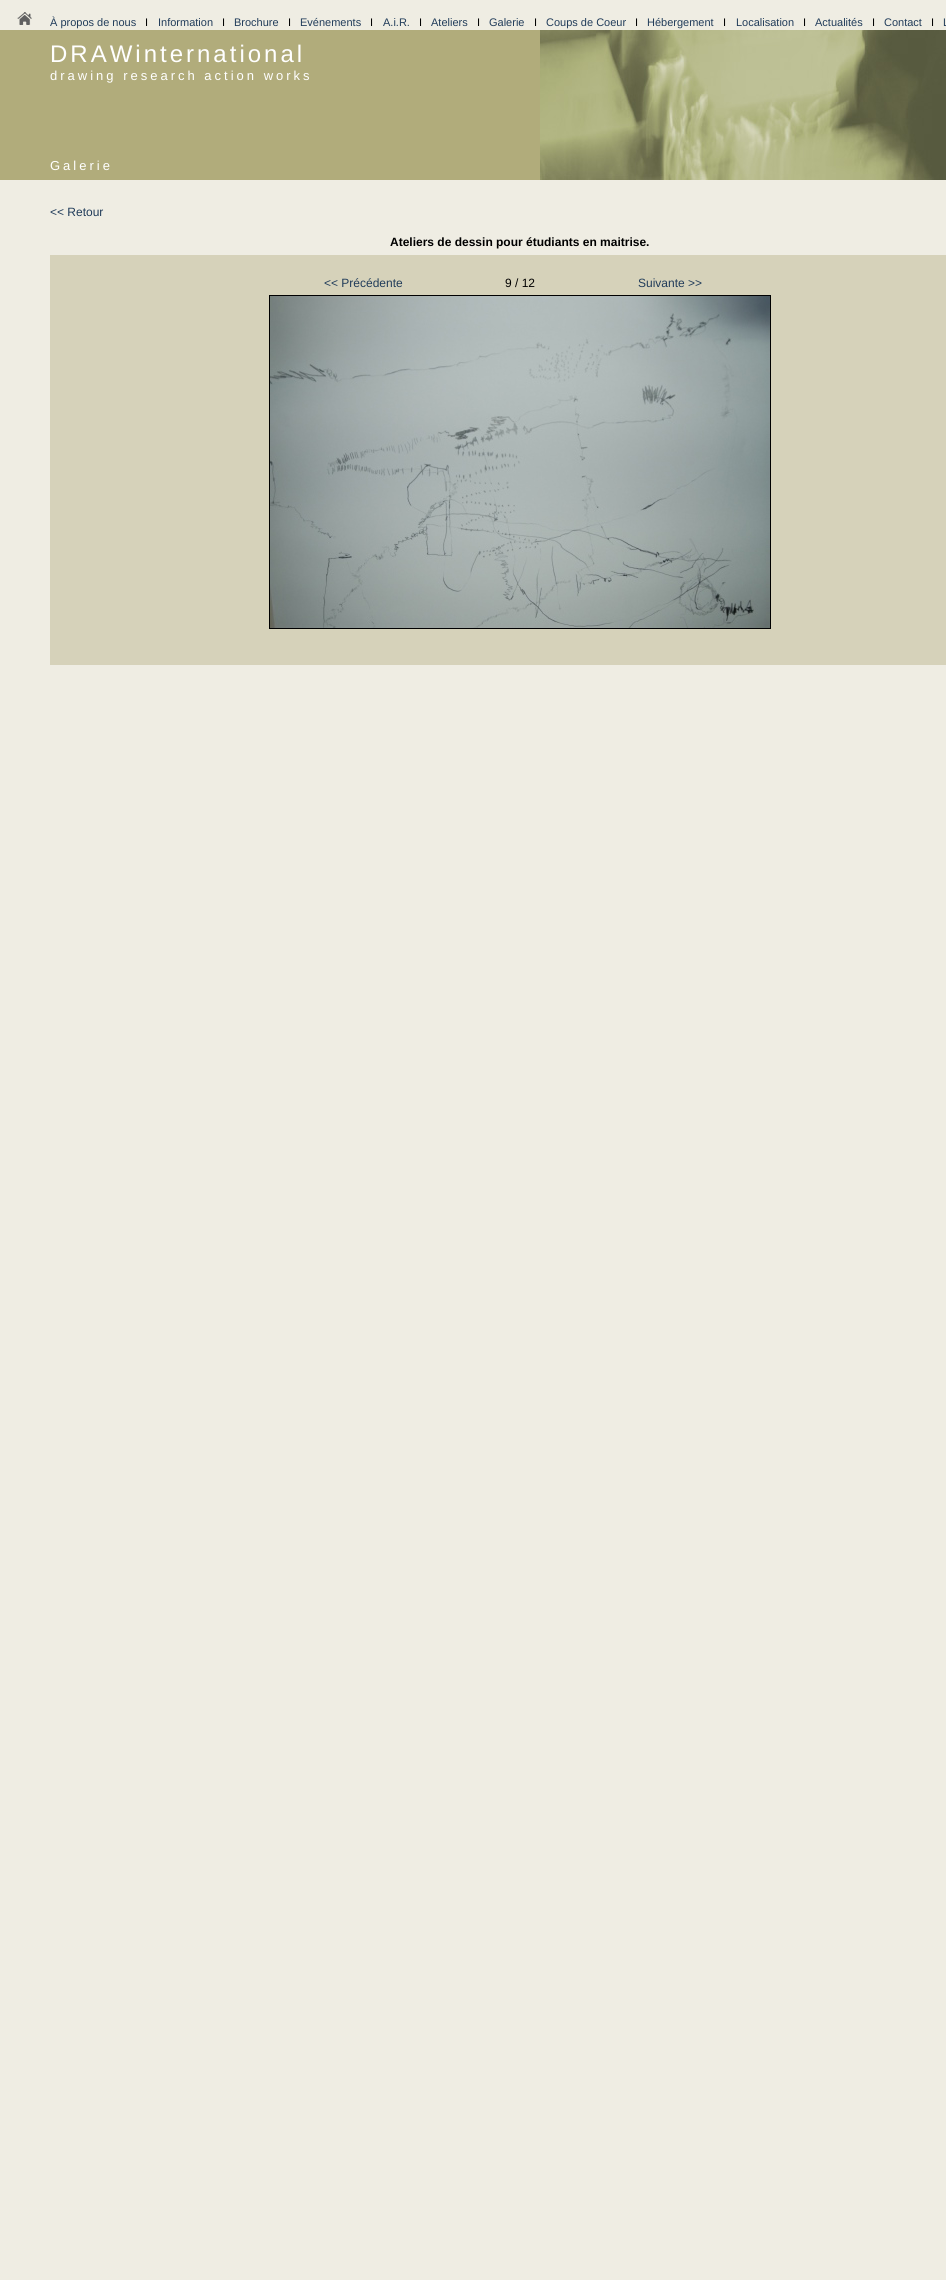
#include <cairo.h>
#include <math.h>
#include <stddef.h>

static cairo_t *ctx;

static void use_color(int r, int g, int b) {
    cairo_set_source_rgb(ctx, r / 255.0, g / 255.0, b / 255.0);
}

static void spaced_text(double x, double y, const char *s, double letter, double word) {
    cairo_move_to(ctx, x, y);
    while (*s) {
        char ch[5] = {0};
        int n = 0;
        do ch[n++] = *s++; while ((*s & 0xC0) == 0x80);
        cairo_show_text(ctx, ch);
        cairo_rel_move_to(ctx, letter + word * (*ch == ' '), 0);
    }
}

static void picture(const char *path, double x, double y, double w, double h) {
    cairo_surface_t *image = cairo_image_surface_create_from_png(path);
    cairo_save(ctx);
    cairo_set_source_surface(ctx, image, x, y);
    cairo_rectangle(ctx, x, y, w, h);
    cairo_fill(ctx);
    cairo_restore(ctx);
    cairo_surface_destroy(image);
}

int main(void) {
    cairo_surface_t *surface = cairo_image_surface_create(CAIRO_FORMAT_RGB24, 946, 2280);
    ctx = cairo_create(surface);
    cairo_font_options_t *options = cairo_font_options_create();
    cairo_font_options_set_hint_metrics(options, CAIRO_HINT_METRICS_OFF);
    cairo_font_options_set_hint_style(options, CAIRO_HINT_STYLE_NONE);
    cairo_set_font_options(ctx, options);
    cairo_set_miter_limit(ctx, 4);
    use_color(239, 237, 227);
    cairo_paint(ctx);
    picture("img1.png", 17, 12, 15, 13);
    cairo_select_font_face(ctx, "Liberation Sans", CAIRO_FONT_SLANT_NORMAL, CAIRO_FONT_WEIGHT_NORMAL);
    cairo_set_font_size(ctx, 11);
    use_color(33, 60, 90);
    cairo_move_to(ctx, 50, 26);
    cairo_show_text(ctx, "À propos de nous");
    use_color(0, 0, 0);
    cairo_move_to(ctx, 145, 26);
    cairo_show_text(ctx, "I");
    use_color(33, 60, 90);
    cairo_move_to(ctx, 158, 26);
    cairo_show_text(ctx, "Information");
    use_color(0, 0, 0);
    cairo_move_to(ctx, 222, 26);
    cairo_show_text(ctx, "I");
    use_color(33, 60, 90);
    cairo_move_to(ctx, 234, 26);
    cairo_show_text(ctx, "Brochure");
    use_color(0, 0, 0);
    cairo_move_to(ctx, 288, 26);
    cairo_show_text(ctx, "I");
    use_color(33, 60, 90);
    cairo_move_to(ctx, 300, 26);
    cairo_show_text(ctx, "Evénements");
    use_color(0, 0, 0);
    cairo_move_to(ctx, 370, 26);
    cairo_show_text(ctx, "I");
    use_color(33, 60, 90);
    cairo_move_to(ctx, 383, 26);
    cairo_show_text(ctx, "A.i.R.");
    use_color(0, 0, 0);
    cairo_move_to(ctx, 419, 26);
    cairo_show_text(ctx, "I");
    use_color(33, 60, 90);
    cairo_move_to(ctx, 431, 26);
    cairo_show_text(ctx, "Ateliers");
    use_color(0, 0, 0);
    cairo_move_to(ctx, 477, 26);
    cairo_show_text(ctx, "I");
    use_color(33, 60, 90);
    cairo_move_to(ctx, 489, 26);
    cairo_show_text(ctx, "Galerie");
    use_color(0, 0, 0);
    cairo_move_to(ctx, 534, 26);
    cairo_show_text(ctx, "I");
    use_color(33, 60, 90);
    cairo_move_to(ctx, 546, 26);
    cairo_show_text(ctx, "Coups de Coeur");
    use_color(0, 0, 0);
    cairo_move_to(ctx, 635, 26);
    cairo_show_text(ctx, "I");
    use_color(33, 60, 90);
    cairo_move_to(ctx, 647, 26);
    cairo_show_text(ctx, "Hébergement");
    use_color(0, 0, 0);
    cairo_move_to(ctx, 723, 26);
    cairo_show_text(ctx, "I");
    use_color(33, 60, 90);
    cairo_move_to(ctx, 736, 26);
    cairo_show_text(ctx, "Localisation");
    use_color(0, 0, 0);
    cairo_move_to(ctx, 803, 26);
    cairo_show_text(ctx, "I");
    use_color(33, 60, 90);
    cairo_move_to(ctx, 815, 26);
    cairo_show_text(ctx, "Actualités");
    use_color(0, 0, 0);
    cairo_move_to(ctx, 872, 26);
    cairo_show_text(ctx, "I");
    use_color(33, 60, 90);
    cairo_move_to(ctx, 884, 26);
    cairo_show_text(ctx, "Contact");
    use_color(0, 0, 0);
    cairo_move_to(ctx, 931, 26);
    cairo_show_text(ctx, "I");
    use_color(33, 60, 90);
    cairo_move_to(ctx, 943, 26);
    cairo_show_text(ctx, "L");
    use_color(177, 172, 123);
    cairo_rectangle(ctx, 0, 30, 540, 150);
    cairo_fill(ctx);
    cairo_set_font_size(ctx, 24);
    use_color(255, 255, 255);
    spaced_text(50, 62, "DRAWinternational", 3, 0);
    cairo_set_font_size(ctx, 13);
    spaced_text(50, 80, "drawing research action works", 3, 0);
    spaced_text(50, 170, "Galerie", 3, 0);
    picture("img2.png", 540, 30, 406, 150);
    cairo_set_font_size(ctx, 12);
    use_color(33, 60, 90);
    cairo_move_to(ctx, 50, 216);
    cairo_show_text(ctx, "<< Retour");
    cairo_select_font_face(ctx, "Liberation Sans", CAIRO_FONT_SLANT_NORMAL, CAIRO_FONT_WEIGHT_BOLD);
    use_color(0, 0, 0);
    cairo_move_to(ctx, 390, 246);
    cairo_show_text(ctx, "Ateliers de dessin pour étudiants en maitrise.");
    use_color(214, 210, 186);
    cairo_rectangle(ctx, 50, 255, 896, 410);
    cairo_fill(ctx);
    cairo_select_font_face(ctx, "Liberation Sans", CAIRO_FONT_SLANT_NORMAL, CAIRO_FONT_WEIGHT_NORMAL);
    use_color(33, 60, 90);
    cairo_move_to(ctx, 324, 287);
    cairo_show_text(ctx, "<< Précédente");
    use_color(0, 0, 0);
    cairo_move_to(ctx, 505, 287);
    cairo_show_text(ctx, "9 / 12");
    use_color(33, 60, 90);
    cairo_move_to(ctx, 638, 287);
    cairo_show_text(ctx, "Suivante >>");
    cairo_rectangle(ctx, 269.5, 295.5, 501, 333);
    use_color(0, 0, 0);
    cairo_set_line_width(ctx, 1);
    cairo_stroke(ctx);
    picture("img3.png", 270, 296, 500, 332);
    cairo_surface_write_to_png(surface, "result.png");
    cairo_font_options_destroy(options);
    cairo_destroy(ctx);
    cairo_surface_destroy(surface);
    return 0;
}
